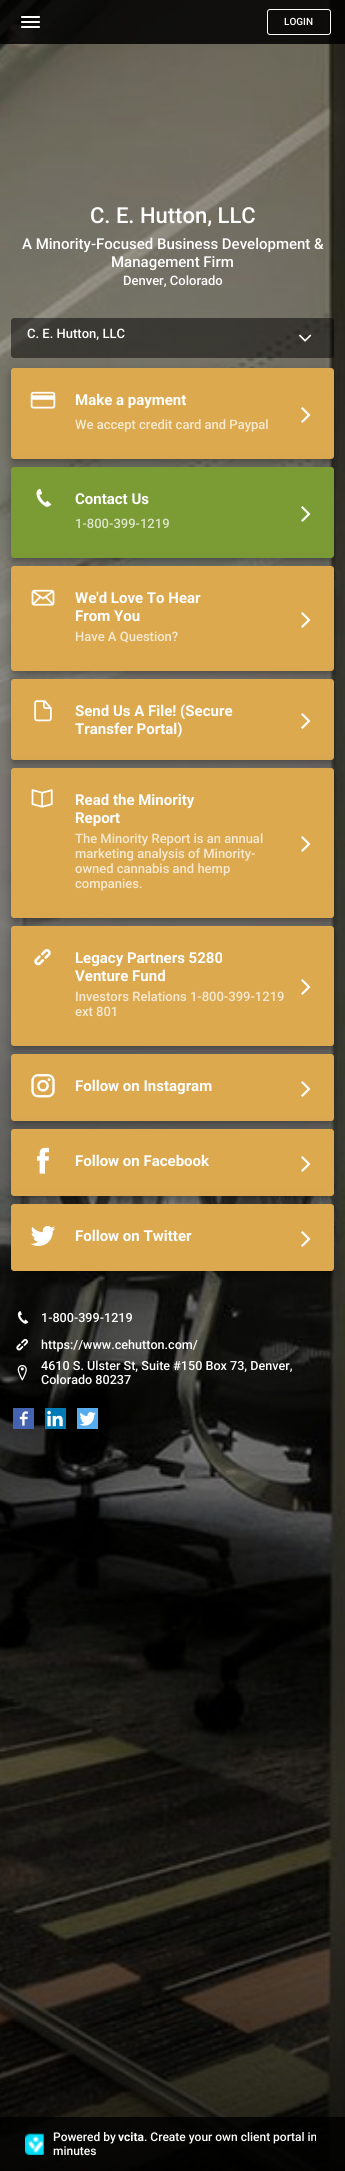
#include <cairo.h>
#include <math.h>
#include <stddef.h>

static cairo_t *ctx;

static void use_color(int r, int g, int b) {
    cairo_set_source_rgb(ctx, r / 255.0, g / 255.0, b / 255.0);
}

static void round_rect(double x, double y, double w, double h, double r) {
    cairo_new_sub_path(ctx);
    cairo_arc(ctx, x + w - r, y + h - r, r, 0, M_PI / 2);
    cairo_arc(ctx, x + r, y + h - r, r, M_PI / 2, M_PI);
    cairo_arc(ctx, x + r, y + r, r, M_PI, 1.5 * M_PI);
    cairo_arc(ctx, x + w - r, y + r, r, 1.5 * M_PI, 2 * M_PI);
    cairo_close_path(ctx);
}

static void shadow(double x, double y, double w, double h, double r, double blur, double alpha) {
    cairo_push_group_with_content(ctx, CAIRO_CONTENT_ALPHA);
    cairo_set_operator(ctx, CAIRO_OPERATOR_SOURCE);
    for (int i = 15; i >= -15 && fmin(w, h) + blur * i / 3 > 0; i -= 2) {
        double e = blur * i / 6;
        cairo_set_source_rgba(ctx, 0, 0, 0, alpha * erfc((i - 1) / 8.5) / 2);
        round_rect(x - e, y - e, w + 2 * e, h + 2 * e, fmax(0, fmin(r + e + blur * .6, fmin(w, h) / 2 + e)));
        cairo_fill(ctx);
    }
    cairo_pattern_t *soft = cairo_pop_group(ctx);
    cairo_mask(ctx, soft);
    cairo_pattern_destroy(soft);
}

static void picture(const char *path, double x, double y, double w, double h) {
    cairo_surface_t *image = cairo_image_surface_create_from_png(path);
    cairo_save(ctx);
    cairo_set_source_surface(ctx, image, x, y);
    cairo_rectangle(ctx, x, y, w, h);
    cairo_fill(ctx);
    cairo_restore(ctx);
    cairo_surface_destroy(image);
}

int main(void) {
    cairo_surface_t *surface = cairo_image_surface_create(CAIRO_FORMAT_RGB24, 345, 2171);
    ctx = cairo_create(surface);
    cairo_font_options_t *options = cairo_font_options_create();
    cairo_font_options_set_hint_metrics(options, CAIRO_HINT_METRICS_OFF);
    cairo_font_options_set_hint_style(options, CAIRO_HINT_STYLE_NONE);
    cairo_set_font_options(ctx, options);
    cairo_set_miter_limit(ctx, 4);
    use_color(255, 255, 255);
    cairo_paint(ctx);
    picture("img1.png", 0, 0, 345, 2171);
    cairo_set_source_rgba(ctx, 0, 0, 0, 0.85);
    cairo_rectangle(ctx, 0, 0, 345, 44);
    cairo_fill(ctx);
    picture("img2.png", 21, 16, 19, 12);
    cairo_set_source_rgba(ctx, 0, 0, 0, 0.2);
    round_rect(267.5, 9.5, 63, 25, 2.5);
    cairo_fill_preserve(ctx);
    use_color(255, 255, 255);
    cairo_set_line_width(ctx, 1);
    cairo_stroke(ctx);
    cairo_select_font_face(ctx, "Roboto Medium", CAIRO_FONT_SLANT_NORMAL, CAIRO_FONT_WEIGHT_NORMAL);
    cairo_set_font_size(ctx, 10);
    cairo_move_to(ctx, 284, 25);
    cairo_show_text(ctx, "LOGIN");
    cairo_set_font_size(ctx, 22);
    cairo_move_to(ctx, 90, 223);
    cairo_show_text(ctx, "C. E. Hutton, LLC");
    cairo_set_font_size(ctx, 15);
    cairo_move_to(ctx, 22, 249);
    cairo_show_text(ctx, "A Minority-Focused Business Development &");
    cairo_move_to(ctx, 111, 267);
    cairo_show_text(ctx, "Management Firm");
    cairo_set_font_size(ctx, 13);
    cairo_move_to(ctx, 123, 285);
    cairo_show_text(ctx, "Denver, Colorado");
    cairo_set_source_rgba(ctx, 0, 0, 0, 0.5);
    round_rect(11, 318, 323, 40, 3);
    cairo_fill(ctx);
    use_color(255, 255, 255);
    cairo_move_to(ctx, 27, 338);
    cairo_show_text(ctx, "C. E. Hutton, LLC");
    picture("img3.png", 299, 334, 13, 8);
    use_color(0, 0, 0);
    shadow(10, 369, 325, 93, 4, 8, 0.12);
    shadow(10, 374, 325, 93, 4, 5, 0.14);
    shadow(13, 374, 319, 87, 1, 2.5, 0.2);
    use_color(220, 169, 79);
    round_rect(11, 368, 323, 91, 3);
    cairo_fill(ctx);
    picture("img4.png", 30, 391, 26, 18);
    cairo_select_font_face(ctx, "Roboto", CAIRO_FONT_SLANT_NORMAL, CAIRO_FONT_WEIGHT_BOLD);
    cairo_set_font_size(ctx, 15);
    use_color(255, 255, 255);
    cairo_move_to(ctx, 75, 405);
    cairo_show_text(ctx, "Make a payment");
    cairo_select_font_face(ctx, "Roboto Medium", CAIRO_FONT_SLANT_NORMAL, CAIRO_FONT_WEIGHT_NORMAL);
    cairo_set_font_size(ctx, 13);
    use_color(246, 233, 209);
    cairo_move_to(ctx, 75, 429);
    cairo_show_text(ctx, "We accept credit card and Paypal");
    picture("img5.png", 301, 407, 10, 16);
    use_color(0, 0, 0);
    shadow(10, 468, 325, 93, 4, 8, 0.12);
    shadow(10, 473, 325, 93, 4, 5, 0.14);
    shadow(13, 473, 319, 87, 1, 2.5, 0.2);
    use_color(123, 155, 53);
    round_rect(11, 467, 323, 91, 3);
    cairo_fill(ctx);
    picture("img6.png", 36, 488, 16, 19);
    cairo_select_font_face(ctx, "Roboto", CAIRO_FONT_SLANT_NORMAL, CAIRO_FONT_WEIGHT_BOLD);
    cairo_set_font_size(ctx, 15);
    use_color(255, 255, 255);
    cairo_move_to(ctx, 75, 504);
    cairo_show_text(ctx, "Contact Us");
    cairo_select_font_face(ctx, "Roboto Medium", CAIRO_FONT_SLANT_NORMAL, CAIRO_FONT_WEIGHT_NORMAL);
    cairo_set_font_size(ctx, 13);
    use_color(221, 229, 202);
    cairo_move_to(ctx, 75, 528);
    cairo_show_text(ctx, "1-800-399-1219");
    picture("img7.png", 301, 506, 10, 16);
    use_color(0, 0, 0);
    shadow(10, 567, 325, 107, 4, 8, 0.12);
    shadow(10, 572, 325, 107, 4, 5, 0.14);
    shadow(13, 572, 319, 101, 1, 2.5, 0.2);
    use_color(220, 169, 79);
    round_rect(11, 566, 323, 105, 3);
    cairo_fill(ctx);
    picture("img8.png", 31, 589, 24, 17);
    cairo_select_font_face(ctx, "Roboto", CAIRO_FONT_SLANT_NORMAL, CAIRO_FONT_WEIGHT_BOLD);
    cairo_set_font_size(ctx, 15);
    use_color(255, 255, 255);
    cairo_move_to(ctx, 75, 603);
    cairo_show_text(ctx, "We'd Love To Hear");
    cairo_move_to(ctx, 75, 621);
    cairo_show_text(ctx, "From You");
    cairo_select_font_face(ctx, "Roboto Medium", CAIRO_FONT_SLANT_NORMAL, CAIRO_FONT_WEIGHT_NORMAL);
    cairo_set_font_size(ctx, 13);
    use_color(246, 233, 209);
    cairo_move_to(ctx, 75, 641);
    cairo_show_text(ctx, "Have A Question?");
    picture("img5.png", 301, 612, 10, 16);
    use_color(0, 0, 0);
    shadow(10, 680, 325, 83, 4, 8, 0.12);
    shadow(10, 685, 325, 83, 4, 5, 0.14);
    shadow(13, 685, 319, 77, 1, 2.5, 0.2);
    use_color(220, 169, 79);
    round_rect(11, 679, 323, 81, 3);
    cairo_fill(ctx);
    picture("img9.png", 34, 700, 18, 22);
    cairo_select_font_face(ctx, "Roboto", CAIRO_FONT_SLANT_NORMAL, CAIRO_FONT_WEIGHT_BOLD);
    cairo_set_font_size(ctx, 15);
    use_color(255, 255, 255);
    cairo_move_to(ctx, 75, 716);
    cairo_show_text(ctx, "Send Us A File! (Secure");
    cairo_move_to(ctx, 75, 734);
    cairo_show_text(ctx, "Transfer Portal)");
    picture("img5.png", 301, 713, 10, 16);
    use_color(0, 0, 0);
    shadow(10, 769, 325, 152, 4, 8, 0.12);
    shadow(10, 774, 325, 152, 4, 5, 0.14);
    shadow(13, 774, 319, 146, 1, 2.5, 0.2);
    use_color(220, 169, 79);
    round_rect(11, 768, 323, 150, 3);
    cairo_fill(ctx);
    picture("img10.png", 31, 789, 22, 19);
    use_color(255, 255, 255);
    cairo_move_to(ctx, 75, 805);
    cairo_show_text(ctx, "Read the Minority");
    cairo_move_to(ctx, 75, 823);
    cairo_show_text(ctx, "Report");
    cairo_select_font_face(ctx, "Roboto Medium", CAIRO_FONT_SLANT_NORMAL, CAIRO_FONT_WEIGHT_NORMAL);
    cairo_set_font_size(ctx, 13);
    use_color(246, 233, 209);
    cairo_move_to(ctx, 75, 843);
    cairo_show_text(ctx, "The Minority Report is an annual");
    cairo_move_to(ctx, 75, 858);
    cairo_show_text(ctx, "marketing analysis of Minority-");
    cairo_move_to(ctx, 75, 873);
    cairo_show_text(ctx, "owned cannabis and hemp");
    cairo_move_to(ctx, 75, 888);
    cairo_show_text(ctx, "companies.");
    picture("img5.png", 301, 836, 10, 16);
    use_color(0, 0, 0);
    shadow(10, 927, 325, 122, 4, 8, 0.12);
    shadow(10, 932, 325, 122, 4, 5, 0.14);
    shadow(13, 932, 319, 116, 1, 2.5, 0.2);
    use_color(220, 169, 79);
    round_rect(11, 926, 323, 120, 3);
    cairo_fill(ctx);
    picture("img11.png", 34, 949, 17, 17);
    cairo_select_font_face(ctx, "Roboto", CAIRO_FONT_SLANT_NORMAL, CAIRO_FONT_WEIGHT_BOLD);
    cairo_set_font_size(ctx, 15);
    use_color(255, 255, 255);
    cairo_move_to(ctx, 75, 963);
    cairo_show_text(ctx, "Legacy Partners 5280");
    cairo_move_to(ctx, 75, 981);
    cairo_show_text(ctx, "Venture Fund");
    cairo_select_font_face(ctx, "Roboto Medium", CAIRO_FONT_SLANT_NORMAL, CAIRO_FONT_WEIGHT_NORMAL);
    cairo_set_font_size(ctx, 13);
    use_color(246, 233, 209);
    cairo_move_to(ctx, 75, 1001);
    cairo_show_text(ctx, "Investors Relations 1-800-399-1219");
    cairo_move_to(ctx, 75, 1016);
    cairo_show_text(ctx, "ext 801");
    picture("img5.png", 301, 979, 10, 16);
    use_color(0, 0, 0);
    shadow(10, 1055, 325, 69, 4, 8, 0.12);
    shadow(10, 1060, 325, 69, 4, 5, 0.14);
    shadow(13, 1060, 319, 63, 1, 2.5, 0.2);
    use_color(220, 169, 79);
    round_rect(11, 1054, 323, 67, 3);
    cairo_fill(ctx);
    picture("img12.png", 31, 1074, 24, 24);
    cairo_select_font_face(ctx, "Roboto", CAIRO_FONT_SLANT_NORMAL, CAIRO_FONT_WEIGHT_BOLD);
    cairo_set_font_size(ctx, 15);
    use_color(255, 255, 255);
    cairo_move_to(ctx, 75, 1091);
    cairo_show_text(ctx, "Follow on Instagram");
    picture("img5.png", 301, 1081, 10, 16);
    use_color(0, 0, 0);
    shadow(10, 1130, 325, 69, 4, 8, 0.12);
    shadow(10, 1135, 325, 69, 4, 5, 0.14);
    shadow(13, 1135, 319, 63, 1, 2.5, 0.2);
    use_color(220, 169, 79);
    round_rect(11, 1129, 323, 67, 3);
    cairo_fill(ctx);
    picture("img13.png", 37, 1147, 12, 27);
    use_color(255, 255, 255);
    cairo_move_to(ctx, 75, 1166);
    cairo_show_text(ctx, "Follow on Facebook");
    picture("img5.png", 301, 1156, 10, 16);
    use_color(0, 0, 0);
    shadow(10, 1205, 325, 69, 4, 8, 0.12);
    shadow(10, 1210, 325, 69, 4, 5, 0.14);
    shadow(13, 1210, 319, 63, 1, 2.5, 0.2);
    use_color(220, 169, 79);
    round_rect(11, 1204, 323, 67, 3);
    cairo_fill(ctx);
    picture("img14.png", 30, 1226, 26, 20);
    use_color(255, 255, 255);
    cairo_move_to(ctx, 75, 1241);
    cairo_show_text(ctx, "Follow on Twitter");
    picture("img5.png", 301, 1231, 10, 16);
    picture("img15.png", 17, 1311, 12, 13);
    cairo_select_font_face(ctx, "Roboto Medium", CAIRO_FONT_SLANT_NORMAL, CAIRO_FONT_WEIGHT_NORMAL);
    cairo_set_font_size(ctx, 12.6);
    cairo_move_to(ctx, 41, 1322);
    cairo_show_text(ctx, "1-800-399-1219");
    picture("img16.png", 16, 1338, 12, 13);
    cairo_move_to(ctx, 41, 1349);
    cairo_show_text(ctx, "https://www.cehutton.com/");
    picture("img17.png", 17, 1365, 10, 16);
    cairo_move_to(ctx, 41, 1370);
    cairo_show_text(ctx, "4610 S. Ulster St, Suite #150 Box 73, Denver,");
    cairo_move_to(ctx, 41, 1384);
    cairo_show_text(ctx, "Colorado 80237");
    picture("img18.png", 13, 1408, 21, 21);
    picture("img19.png", 45, 1408, 21, 21);
    picture("img20.png", 77, 1408, 21, 21);
    cairo_set_source_rgba(ctx, 0, 0, 0, 0.8);
    cairo_rectangle(ctx, 0, 2117, 345, 54);
    cairo_fill(ctx);
    picture("img21.png", 25, 2133, 19, 22);
    cairo_set_font_size(ctx, 12);
    use_color(255, 255, 255);
    cairo_move_to(ctx, 53, 2141);
    cairo_show_text(ctx, "Powered by");
    cairo_select_font_face(ctx, "Roboto", CAIRO_FONT_SLANT_NORMAL, CAIRO_FONT_WEIGHT_BOLD);
    cairo_move_to(ctx, 118, 2141);
    cairo_show_text(ctx, "vcita");
    cairo_select_font_face(ctx, "Roboto Medium", CAIRO_FONT_SLANT_NORMAL, CAIRO_FONT_WEIGHT_NORMAL);
    cairo_move_to(ctx, 144, 2141);
    cairo_show_text(ctx, ". Create your own client portal in");
    cairo_move_to(ctx, 53, 2155);
    cairo_show_text(ctx, "minutes");
    cairo_surface_write_to_png(surface, "result.png");
    cairo_font_options_destroy(options);
    cairo_destroy(ctx);
    cairo_surface_destroy(surface);
    return 0;
}
